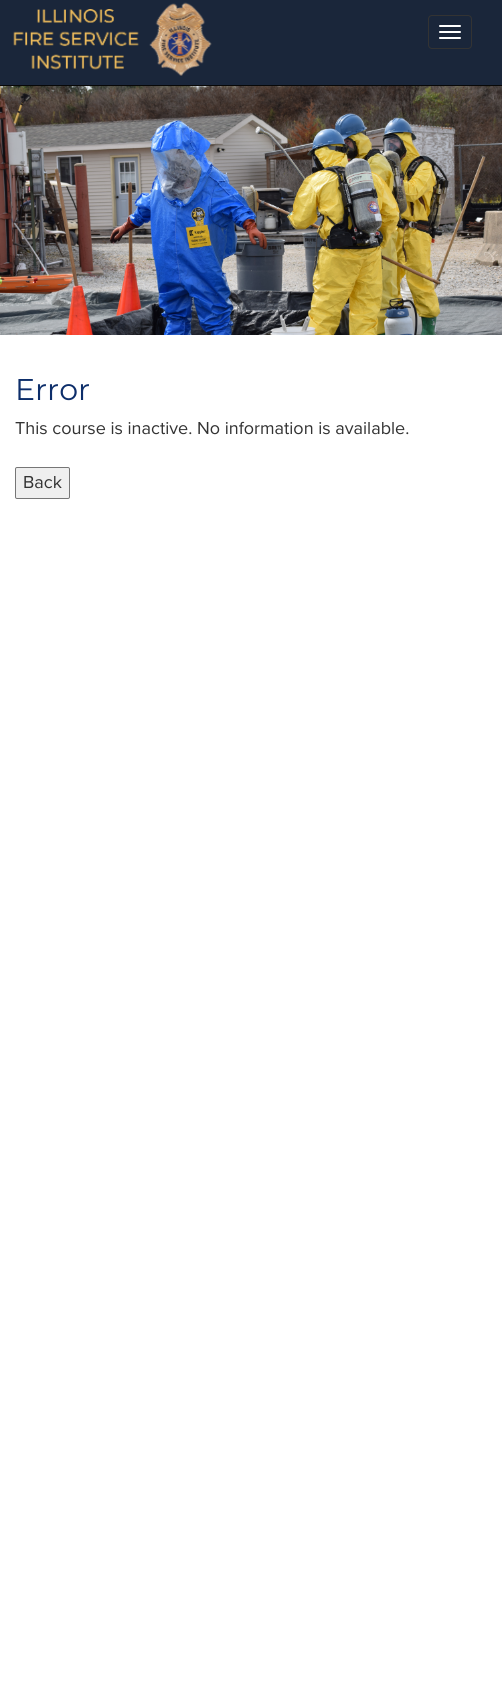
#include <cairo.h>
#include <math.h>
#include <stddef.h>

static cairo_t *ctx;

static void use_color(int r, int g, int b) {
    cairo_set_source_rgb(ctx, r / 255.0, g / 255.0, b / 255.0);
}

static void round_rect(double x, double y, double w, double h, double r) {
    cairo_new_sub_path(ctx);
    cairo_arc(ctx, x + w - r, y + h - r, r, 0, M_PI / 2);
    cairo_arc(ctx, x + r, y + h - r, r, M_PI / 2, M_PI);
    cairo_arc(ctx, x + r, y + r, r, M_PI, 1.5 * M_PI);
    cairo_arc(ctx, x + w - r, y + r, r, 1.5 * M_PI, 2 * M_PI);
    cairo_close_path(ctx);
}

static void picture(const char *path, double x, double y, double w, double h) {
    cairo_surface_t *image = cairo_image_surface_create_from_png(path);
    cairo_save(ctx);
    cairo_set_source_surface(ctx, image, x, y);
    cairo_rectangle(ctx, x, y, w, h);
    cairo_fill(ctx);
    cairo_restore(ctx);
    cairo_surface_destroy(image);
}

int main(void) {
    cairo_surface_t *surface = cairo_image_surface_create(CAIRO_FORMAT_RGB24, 502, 1703);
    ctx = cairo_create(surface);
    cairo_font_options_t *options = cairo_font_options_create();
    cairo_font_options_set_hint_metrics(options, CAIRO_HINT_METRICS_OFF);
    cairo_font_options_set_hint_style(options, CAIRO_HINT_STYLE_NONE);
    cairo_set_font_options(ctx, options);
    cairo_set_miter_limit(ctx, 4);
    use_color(255, 255, 255);
    cairo_paint(ctx);
    use_color(26, 38, 58);
    cairo_rectangle(ctx, 0, 0, 502, 85);
    cairo_fill(ctx);
    use_color(8, 8, 8);
    cairo_rectangle(ctx, 0, 85, 502, 1);
    cairo_fill(ctx);
    picture("img1.png", 13, 2, 199, 74);
    round_rect(428.5, 15.5, 43, 33, 3.5);
    use_color(51, 51, 51);
    cairo_set_line_width(ctx, 1);
    cairo_stroke(ctx);
    use_color(255, 255, 255);
    round_rect(439, 25, 22, 2, 1);
    cairo_fill(ctx);
    round_rect(439, 31, 22, 2, 1);
    cairo_fill(ctx);
    round_rect(439, 37, 22, 2, 1);
    cairo_fill(ctx);
    picture("img2.png", 0, 86, 502, 249);
    cairo_select_font_face(ctx, "Montserrat", CAIRO_FONT_SLANT_NORMAL, CAIRO_FONT_WEIGHT_NORMAL);
    cairo_set_font_size(ctx, 30);
    use_color(13, 46, 106);
    cairo_move_to(ctx, 15, 400);
    cairo_show_text(ctx, "Error");
    cairo_select_font_face(ctx, "Proxima Nova", CAIRO_FONT_SLANT_NORMAL, CAIRO_FONT_WEIGHT_NORMAL);
    cairo_set_font_size(ctx, 18);
    use_color(51, 51, 51);
    cairo_move_to(ctx, 15, 434);
    cairo_show_text(ctx, "This course is inactive. No information is available.");
    use_color(239, 239, 239);
    round_rect(15.5, 467.5, 54, 31, 1.5);
    cairo_fill_preserve(ctx);
    use_color(118, 118, 118);
    cairo_stroke(ctx);
    use_color(51, 51, 51);
    cairo_move_to(ctx, 23, 488);
    cairo_show_text(ctx, "Back");
    cairo_surface_write_to_png(surface, "result.png");
    cairo_font_options_destroy(options);
    cairo_destroy(ctx);
    cairo_surface_destroy(surface);
    return 0;
}
